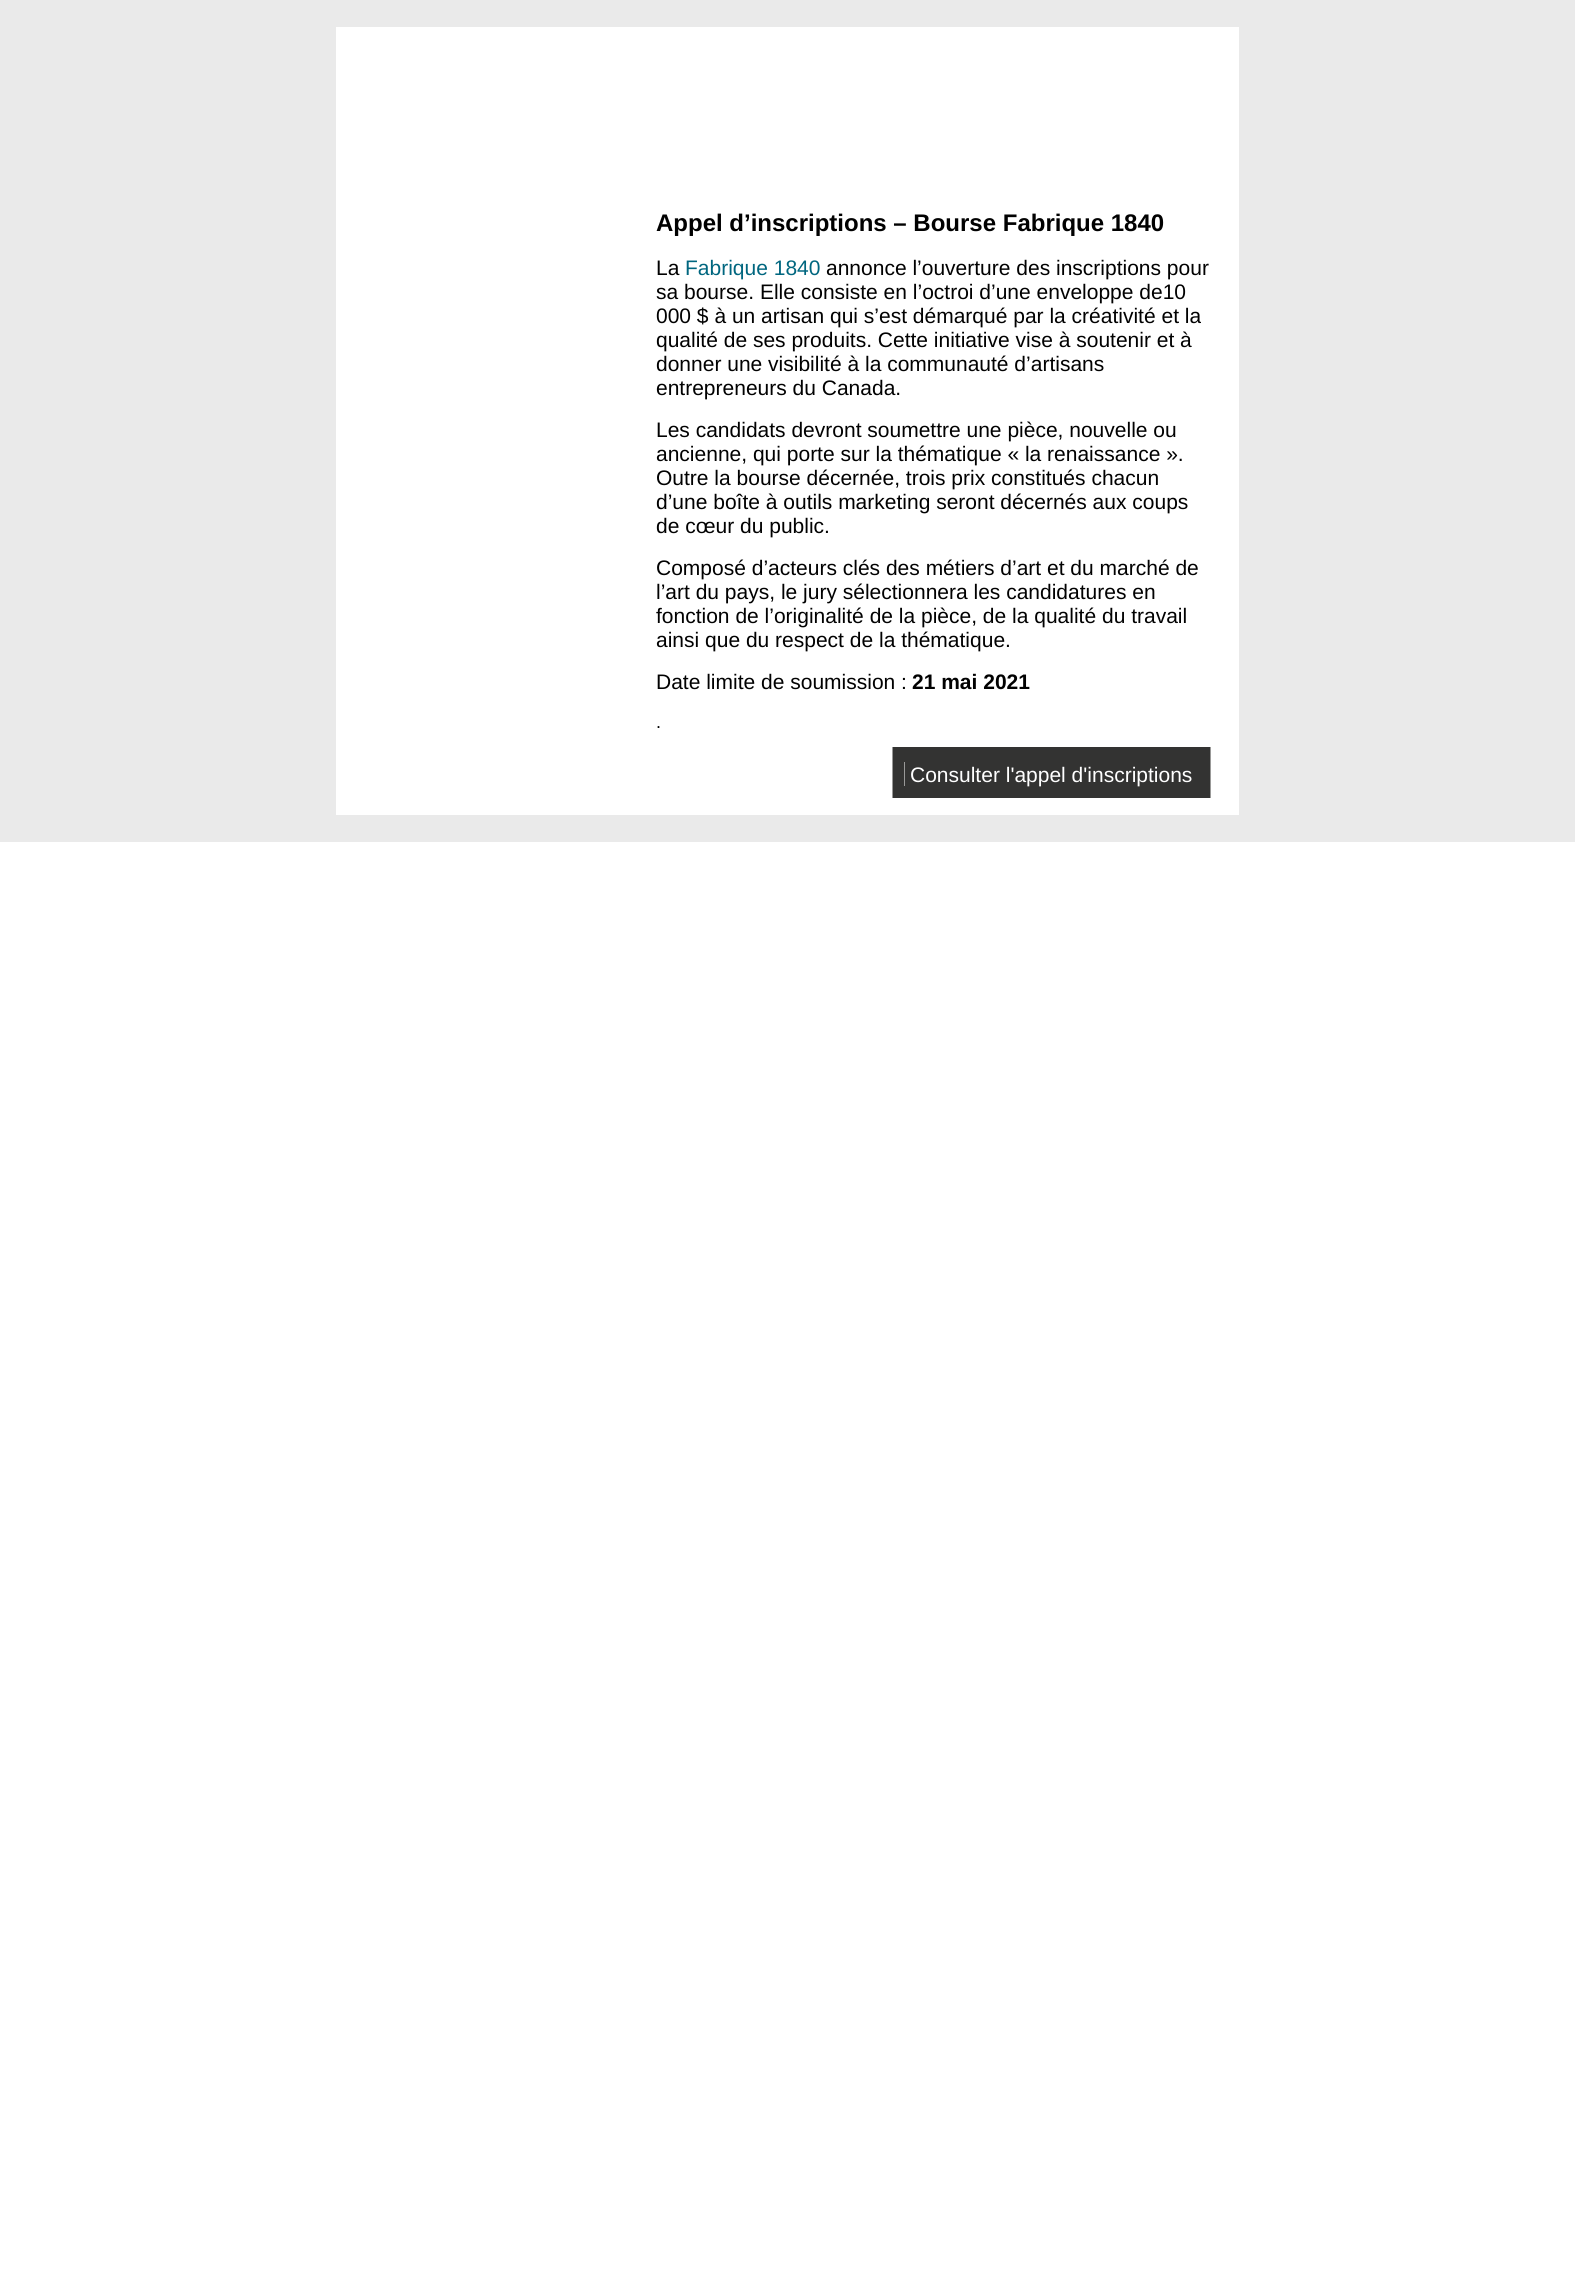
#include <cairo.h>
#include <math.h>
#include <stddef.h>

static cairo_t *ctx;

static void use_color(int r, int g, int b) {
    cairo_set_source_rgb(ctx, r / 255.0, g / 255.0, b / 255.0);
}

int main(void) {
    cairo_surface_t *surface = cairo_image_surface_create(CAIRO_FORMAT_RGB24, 1575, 2283);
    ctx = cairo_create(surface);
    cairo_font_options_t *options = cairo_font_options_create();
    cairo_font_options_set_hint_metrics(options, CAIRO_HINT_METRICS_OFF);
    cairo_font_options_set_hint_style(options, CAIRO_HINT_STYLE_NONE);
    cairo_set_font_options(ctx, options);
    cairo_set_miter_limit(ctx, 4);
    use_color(255, 255, 255);
    cairo_paint(ctx);
    use_color(234, 234, 234);
    cairo_rectangle(ctx, 0, 0, 1575, 842);
    cairo_fill(ctx);
    use_color(255, 255, 255);
    cairo_rectangle(ctx, 336, 27, 903, 788);
    cairo_fill(ctx);
    cairo_select_font_face(ctx, "Liberation Sans", CAIRO_FONT_SLANT_NORMAL, CAIRO_FONT_WEIGHT_BOLD);
    cairo_set_font_size(ctx, 24);
    use_color(1, 1, 1);
    cairo_move_to(ctx, 656, 231);
    cairo_show_text(ctx, "Appel d’inscriptions – Bourse Fabrique 1840");
    cairo_select_font_face(ctx, "Liberation Sans", CAIRO_FONT_SLANT_NORMAL, CAIRO_FONT_WEIGHT_NORMAL);
    cairo_set_font_size(ctx, 21);
    cairo_move_to(ctx, 656, 275);
    cairo_show_text(ctx, "La");
    use_color(0, 102, 127);
    cairo_move_to(ctx, 685, 275);
    cairo_show_text(ctx, "Fabrique 1840");
    use_color(1, 1, 1);
    cairo_move_to(ctx, 826, 275);
    cairo_show_text(ctx, "annonce l’ouverture des inscriptions pour");
    cairo_move_to(ctx, 656, 299);
    cairo_show_text(ctx, "sa bourse. Elle consiste en l’octroi d’une enveloppe de10");
    cairo_move_to(ctx, 656, 323);
    cairo_show_text(ctx, "000 $ à un artisan qui s’est démarqué par la créativité et la");
    cairo_move_to(ctx, 656, 347);
    cairo_show_text(ctx, "qualité de ses produits. Cette initiative vise à soutenir et à");
    cairo_move_to(ctx, 656, 371);
    cairo_show_text(ctx, "donner une visibilité à la communauté d’artisans");
    cairo_move_to(ctx, 656, 395);
    cairo_show_text(ctx, "entrepreneurs du Canada.");
    cairo_move_to(ctx, 656, 437);
    cairo_show_text(ctx, "Les candidats devront soumettre une pièce, nouvelle ou");
    cairo_move_to(ctx, 656, 461);
    cairo_show_text(ctx, "ancienne, qui porte sur la thématique « la renaissance ».");
    cairo_move_to(ctx, 656, 485);
    cairo_show_text(ctx, "Outre la bourse décernée, trois prix constitués chacun");
    cairo_move_to(ctx, 656, 509);
    cairo_show_text(ctx, "d’une boîte à outils marketing seront décernés aux coups");
    cairo_move_to(ctx, 656, 533);
    cairo_show_text(ctx, "de cœur du public.");
    cairo_move_to(ctx, 656, 575);
    cairo_show_text(ctx, "Composé d’acteurs clés des métiers d’art et du marché de");
    cairo_move_to(ctx, 656, 599);
    cairo_show_text(ctx, "l’art du pays, le jury sélectionnera les candidatures en");
    cairo_move_to(ctx, 656, 623);
    cairo_show_text(ctx, "fonction de l’originalité de la pièce, de la qualité du travail");
    cairo_move_to(ctx, 656, 647);
    cairo_show_text(ctx, "ainsi que du respect de la thématique.");
    cairo_move_to(ctx, 656, 689);
    cairo_show_text(ctx, "Date limite de soumission :");
    cairo_select_font_face(ctx, "Liberation Sans", CAIRO_FONT_SLANT_NORMAL, CAIRO_FONT_WEIGHT_BOLD);
    cairo_move_to(ctx, 912, 689);
    cairo_show_text(ctx, "21 mai 2021");
    cairo_select_font_face(ctx, "Liberation Sans", CAIRO_FONT_SLANT_NORMAL, CAIRO_FONT_WEIGHT_NORMAL);
    cairo_set_font_size(ctx, 18);
    cairo_move_to(ctx, 656, 728);
    cairo_show_text(ctx, ".");
    use_color(51, 51, 50);
    cairo_rectangle(ctx, 911, 762, 282, 24);
    cairo_fill(ctx);
    cairo_new_path(ctx);
    cairo_move_to(ctx, 898.5, 753);
    cairo_line_to(ctx, 1204.5, 753);
    cairo_line_to(ctx, 1204.5, 792);
    cairo_line_to(ctx, 898.5, 792);
    cairo_close_path(ctx);
    cairo_set_line_width(ctx, 12);
    cairo_stroke(ctx);
    cairo_rectangle(ctx, 896, 759, 303, 3);
    cairo_fill(ctx);
    cairo_rectangle(ctx, 1193, 762, 6, 24);
    cairo_fill(ctx);
    cairo_rectangle(ctx, 905, 762, 6, 24);
    cairo_fill(ctx);
    cairo_set_font_size(ctx, 21);
    use_color(255, 255, 255);
    cairo_move_to(ctx, 910, 782);
    cairo_show_text(ctx, "Consulter l'appel d'inscriptions");
    cairo_surface_write_to_png(surface, "result.png");
    cairo_font_options_destroy(options);
    cairo_destroy(ctx);
    cairo_surface_destroy(surface);
    return 0;
}
